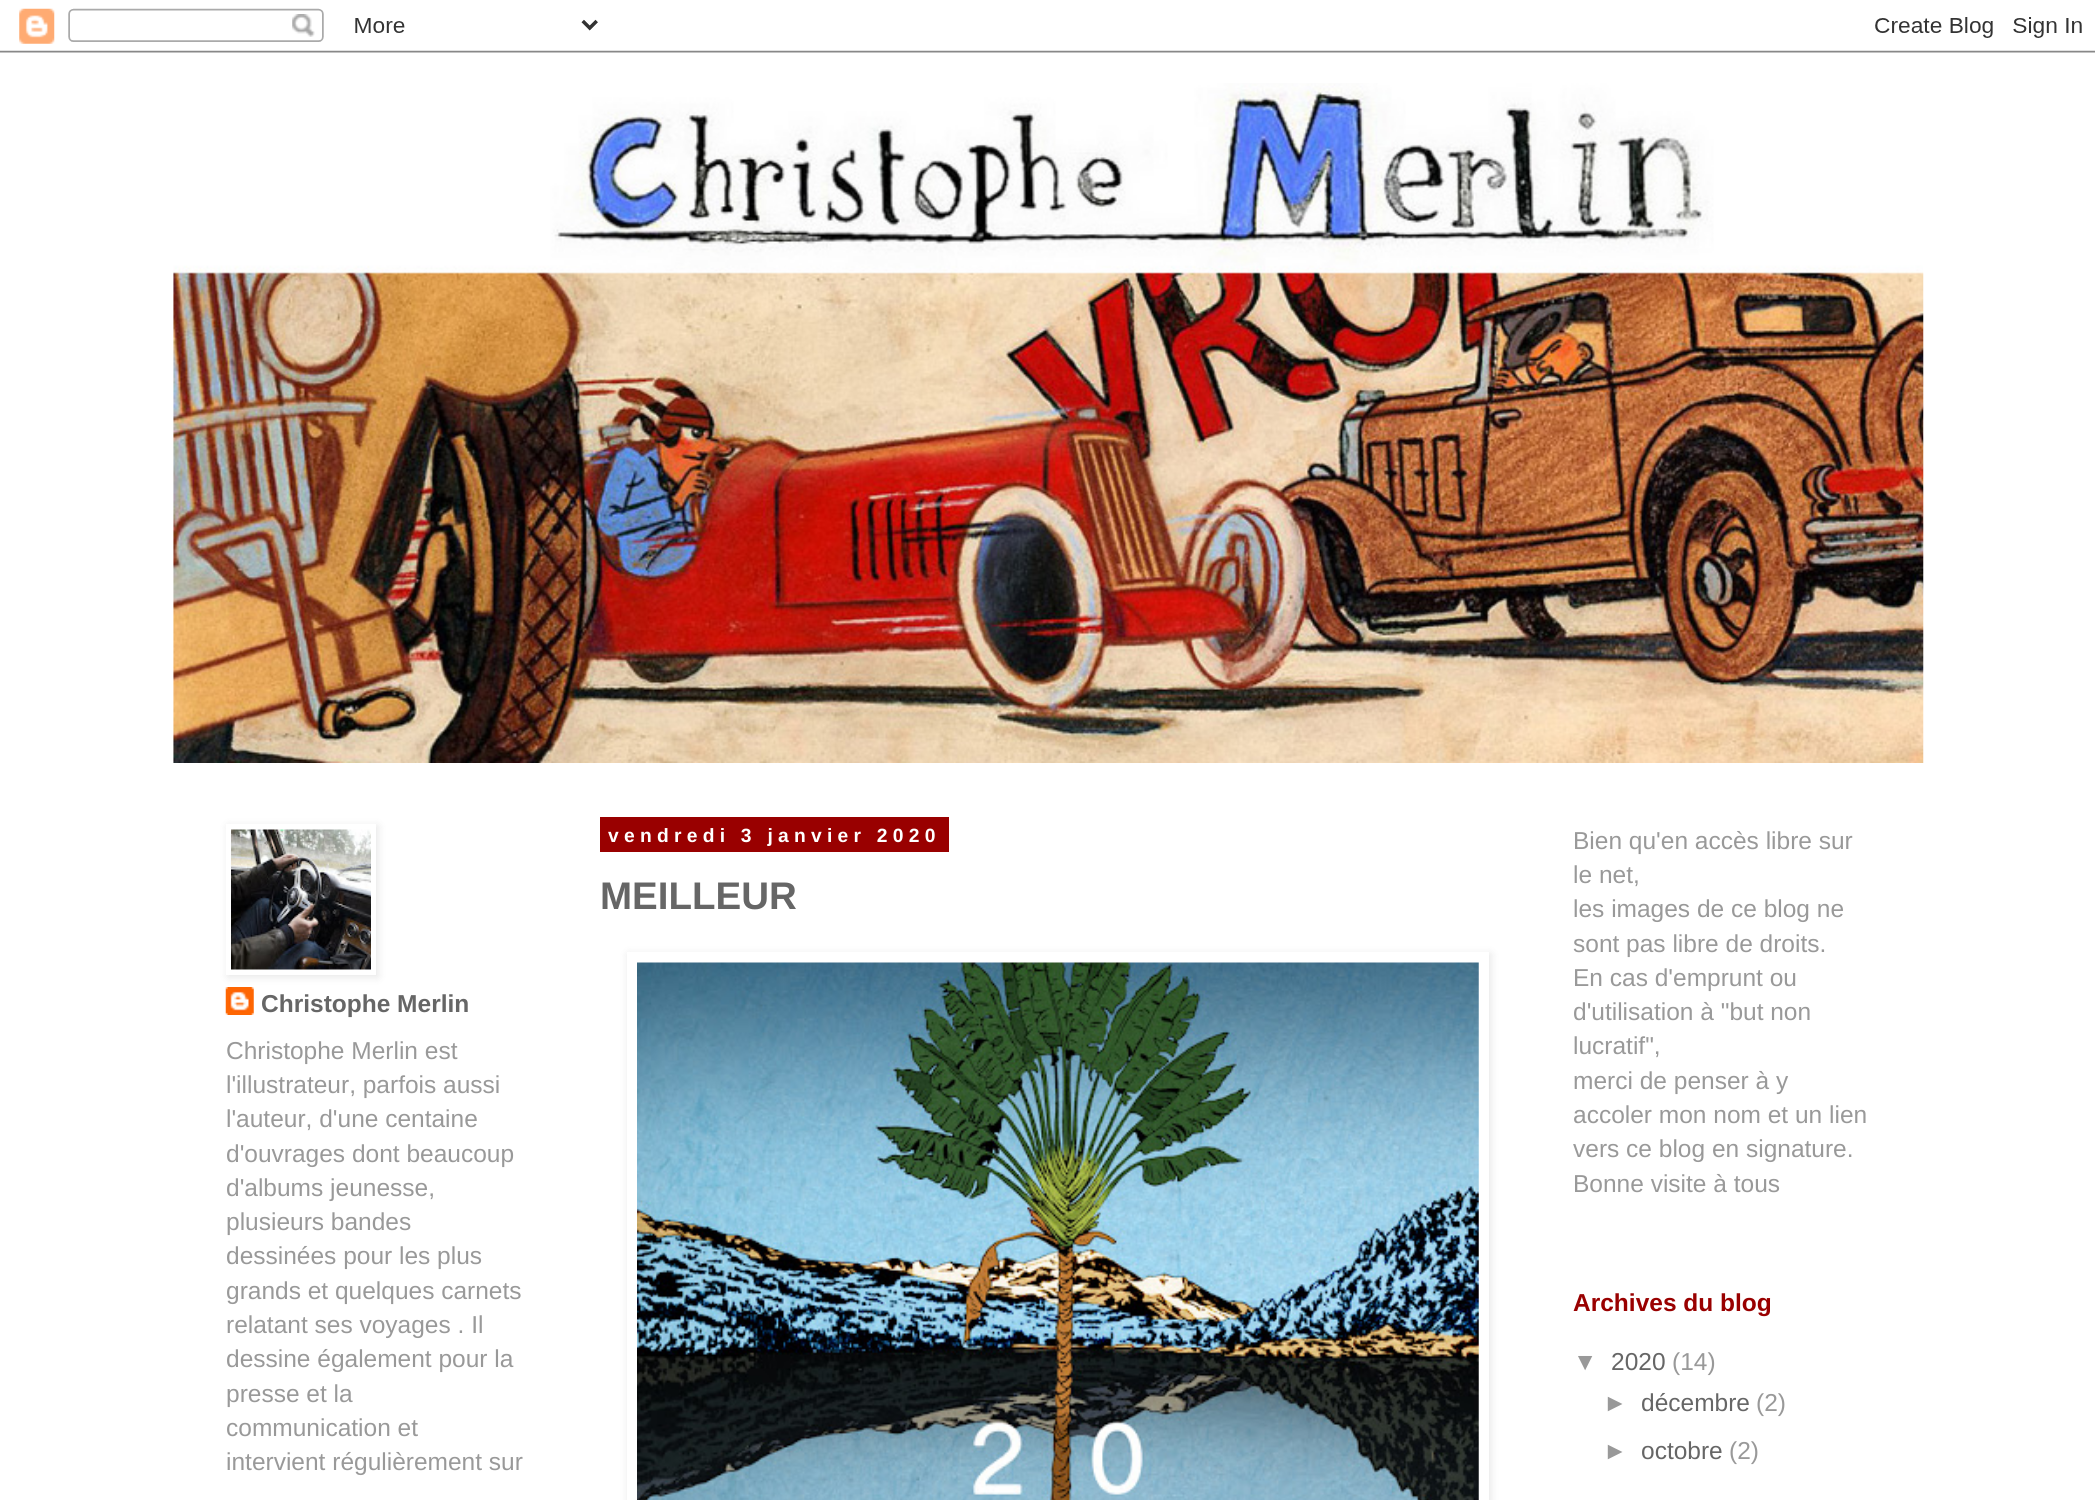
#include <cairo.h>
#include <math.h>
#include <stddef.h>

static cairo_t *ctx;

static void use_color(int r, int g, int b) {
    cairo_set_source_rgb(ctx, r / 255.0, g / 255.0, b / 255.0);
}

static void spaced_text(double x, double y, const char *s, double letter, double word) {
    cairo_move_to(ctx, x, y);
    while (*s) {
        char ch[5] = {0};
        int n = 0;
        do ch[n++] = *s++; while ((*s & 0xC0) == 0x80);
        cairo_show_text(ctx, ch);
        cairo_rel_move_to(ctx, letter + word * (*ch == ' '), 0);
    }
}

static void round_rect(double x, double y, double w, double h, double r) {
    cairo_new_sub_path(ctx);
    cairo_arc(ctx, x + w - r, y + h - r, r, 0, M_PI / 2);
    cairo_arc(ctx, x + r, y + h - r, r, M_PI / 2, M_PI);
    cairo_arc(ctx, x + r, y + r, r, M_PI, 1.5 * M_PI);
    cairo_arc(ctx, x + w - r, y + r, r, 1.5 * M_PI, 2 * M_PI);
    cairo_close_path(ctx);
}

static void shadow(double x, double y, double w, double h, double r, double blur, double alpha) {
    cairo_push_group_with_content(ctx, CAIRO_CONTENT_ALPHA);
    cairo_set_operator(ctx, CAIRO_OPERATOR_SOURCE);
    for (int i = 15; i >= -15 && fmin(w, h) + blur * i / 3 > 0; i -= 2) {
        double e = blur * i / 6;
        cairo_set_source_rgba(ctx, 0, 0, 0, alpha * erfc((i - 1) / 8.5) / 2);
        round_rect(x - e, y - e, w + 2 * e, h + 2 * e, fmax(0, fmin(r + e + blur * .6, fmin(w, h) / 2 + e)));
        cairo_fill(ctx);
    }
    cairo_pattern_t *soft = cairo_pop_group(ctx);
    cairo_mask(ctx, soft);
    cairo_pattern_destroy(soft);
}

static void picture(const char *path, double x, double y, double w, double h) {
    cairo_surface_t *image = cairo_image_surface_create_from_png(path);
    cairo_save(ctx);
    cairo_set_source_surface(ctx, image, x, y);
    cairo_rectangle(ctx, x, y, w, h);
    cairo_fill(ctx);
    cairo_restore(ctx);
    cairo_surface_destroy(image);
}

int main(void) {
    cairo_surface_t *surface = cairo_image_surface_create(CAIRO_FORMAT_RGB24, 2095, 1500);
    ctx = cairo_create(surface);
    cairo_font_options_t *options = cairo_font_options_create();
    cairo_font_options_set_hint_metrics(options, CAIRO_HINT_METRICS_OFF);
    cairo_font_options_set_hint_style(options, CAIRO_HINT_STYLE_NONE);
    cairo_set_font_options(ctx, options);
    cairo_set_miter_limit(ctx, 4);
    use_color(255, 255, 255);
    cairo_paint(ctx);
    picture("img1.png", 0, 8, 2095, 45);
    picture("img2.png", 173, 83, 1751, 680);
    picture("img4.png", 225, 987, 29, 28);
    use_color(0, 0, 0);
    shadow(228, 826, 150, 151, 0, 4.5, 0.1);
    use_color(255, 255, 255);
    cairo_rectangle(ctx, 226, 824, 150, 151);
    cairo_fill(ctx);
    picture("img3.png", 231, 829, 140, 141);
    cairo_select_font_face(ctx, "Liberation Sans", CAIRO_FONT_SLANT_NORMAL, CAIRO_FONT_WEIGHT_BOLD);
    cairo_set_font_size(ctx, 24.5);
    use_color(102, 102, 102);
    cairo_move_to(ctx, 261, 1012);
    cairo_show_text(ctx, "Christophe Merlin");
    cairo_select_font_face(ctx, "Liberation Sans", CAIRO_FONT_SLANT_NORMAL, CAIRO_FONT_WEIGHT_NORMAL);
    use_color(153, 153, 153);
    cairo_move_to(ctx, 226, 1059);
    cairo_show_text(ctx, "Christophe Merlin est");
    cairo_move_to(ctx, 226, 1093);
    cairo_show_text(ctx, "l'illustrateur, parfois aussi");
    cairo_move_to(ctx, 226, 1127);
    cairo_show_text(ctx, "l'auteur, d'une centaine");
    cairo_move_to(ctx, 226, 1162);
    cairo_show_text(ctx, "d'ouvrages dont beaucoup");
    cairo_move_to(ctx, 226, 1196);
    cairo_show_text(ctx, "d'albums jeunesse,");
    cairo_move_to(ctx, 226, 1230);
    cairo_show_text(ctx, "plusieurs bandes");
    cairo_move_to(ctx, 226, 1264);
    cairo_show_text(ctx, "dessinées pour les plus");
    cairo_move_to(ctx, 226, 1299);
    cairo_show_text(ctx, "grands et quelques carnets");
    cairo_move_to(ctx, 226, 1333);
    cairo_show_text(ctx, "relatant ses voyages . Il");
    cairo_move_to(ctx, 226, 1367);
    cairo_show_text(ctx, "dessine également pour la");
    cairo_move_to(ctx, 226, 1402);
    cairo_show_text(ctx, "presse et la");
    cairo_move_to(ctx, 226, 1436);
    cairo_show_text(ctx, "communication et");
    cairo_move_to(ctx, 226, 1470);
    cairo_show_text(ctx, "intervient régulièrement sur");
    use_color(153, 0, 0);
    cairo_rectangle(ctx, 600, 817, 349, 35);
    cairo_fill(ctx);
    cairo_select_font_face(ctx, "Liberation Sans", CAIRO_FONT_SLANT_NORMAL, CAIRO_FONT_WEIGHT_BOLD);
    cairo_set_font_size(ctx, 19.25);
    use_color(255, 255, 255);
    spaced_text(608, 842, "vendredi 3 janvier 2020", 5.25, 0);
    cairo_set_font_size(ctx, 38.5);
    use_color(102, 102, 102);
    cairo_move_to(ctx, 600, 909);
    cairo_show_text(ctx, "MEILLEUR");
    cairo_save(ctx);
    cairo_set_fill_rule(ctx, CAIRO_FILL_RULE_EVEN_ODD);
    cairo_new_path(ctx);
    cairo_move_to(ctx, 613, 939);
    cairo_line_to(ctx, 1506, 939);
    cairo_line_to(ctx, 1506, 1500);
    cairo_line_to(ctx, 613, 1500);
    cairo_close_path(ctx);
    cairo_move_to(ctx, 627, 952);
    cairo_line_to(ctx, 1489, 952);
    cairo_line_to(ctx, 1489, 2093);
    cairo_line_to(ctx, 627, 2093);
    cairo_close_path(ctx);
    cairo_clip(ctx);
    use_color(0, 0, 0);
    shadow(628, 954, 863, 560, 0, 4.5, 0.1);
    cairo_restore(ctx);
    picture("img5.png", 637, 962, 842, 538);
    cairo_select_font_face(ctx, "Liberation Sans", CAIRO_FONT_SLANT_NORMAL, CAIRO_FONT_WEIGHT_NORMAL);
    cairo_set_font_size(ctx, 24.5);
    use_color(153, 153, 153);
    cairo_move_to(ctx, 1573, 849);
    cairo_show_text(ctx, "Bien qu'en accès libre sur");
    cairo_move_to(ctx, 1573, 883);
    cairo_show_text(ctx, "le net,");
    cairo_move_to(ctx, 1573, 917);
    cairo_show_text(ctx, "les images de ce blog ne");
    cairo_move_to(ctx, 1573, 952);
    cairo_show_text(ctx, "sont pas libre de droits.");
    cairo_move_to(ctx, 1573, 986);
    cairo_show_text(ctx, "En cas d'emprunt ou");
    cairo_move_to(ctx, 1573, 1020);
    cairo_show_text(ctx, "d'utilisation à \"but non");
    cairo_move_to(ctx, 1573, 1054);
    cairo_show_text(ctx, "lucratif\",");
    cairo_move_to(ctx, 1573, 1089);
    cairo_show_text(ctx, "merci de penser à y");
    cairo_move_to(ctx, 1573, 1123);
    cairo_show_text(ctx, "accoler mon nom et un lien");
    cairo_move_to(ctx, 1573, 1157);
    cairo_show_text(ctx, "vers ce blog en signature.");
    cairo_move_to(ctx, 1573, 1192);
    cairo_show_text(ctx, "Bonne visite à tous");
    cairo_select_font_face(ctx, "Liberation Sans", CAIRO_FONT_SLANT_NORMAL, CAIRO_FONT_WEIGHT_BOLD);
    use_color(153, 0, 0);
    cairo_move_to(ctx, 1573, 1311);
    cairo_show_text(ctx, "Archives du blog");
    cairo_select_font_face(ctx, "Liberation Sans", CAIRO_FONT_SLANT_NORMAL, CAIRO_FONT_WEIGHT_NORMAL);
    use_color(153, 153, 153);
    cairo_move_to(ctx, 1573, 1370);
    cairo_show_text(ctx, "▼");
    use_color(102, 102, 102);
    cairo_move_to(ctx, 1611, 1370);
    cairo_show_text(ctx, "2020");
    use_color(153, 153, 153);
    cairo_move_to(ctx, 1672, 1370);
    cairo_show_text(ctx, "(14)");
    cairo_move_to(ctx, 1603, 1411);
    cairo_show_text(ctx, "►");
    use_color(102, 102, 102);
    cairo_move_to(ctx, 1641, 1411);
    cairo_show_text(ctx, "décembre");
    use_color(153, 153, 153);
    cairo_move_to(ctx, 1756, 1411);
    cairo_show_text(ctx, "(2)");
    cairo_move_to(ctx, 1603, 1459);
    cairo_show_text(ctx, "►");
    use_color(102, 102, 102);
    cairo_move_to(ctx, 1641, 1459);
    cairo_show_text(ctx, "octobre");
    use_color(153, 153, 153);
    cairo_move_to(ctx, 1729, 1459);
    cairo_show_text(ctx, "(2)");
    cairo_surface_write_to_png(surface, "result.png");
    cairo_font_options_destroy(options);
    cairo_destroy(ctx);
    cairo_surface_destroy(surface);
    return 0;
}
